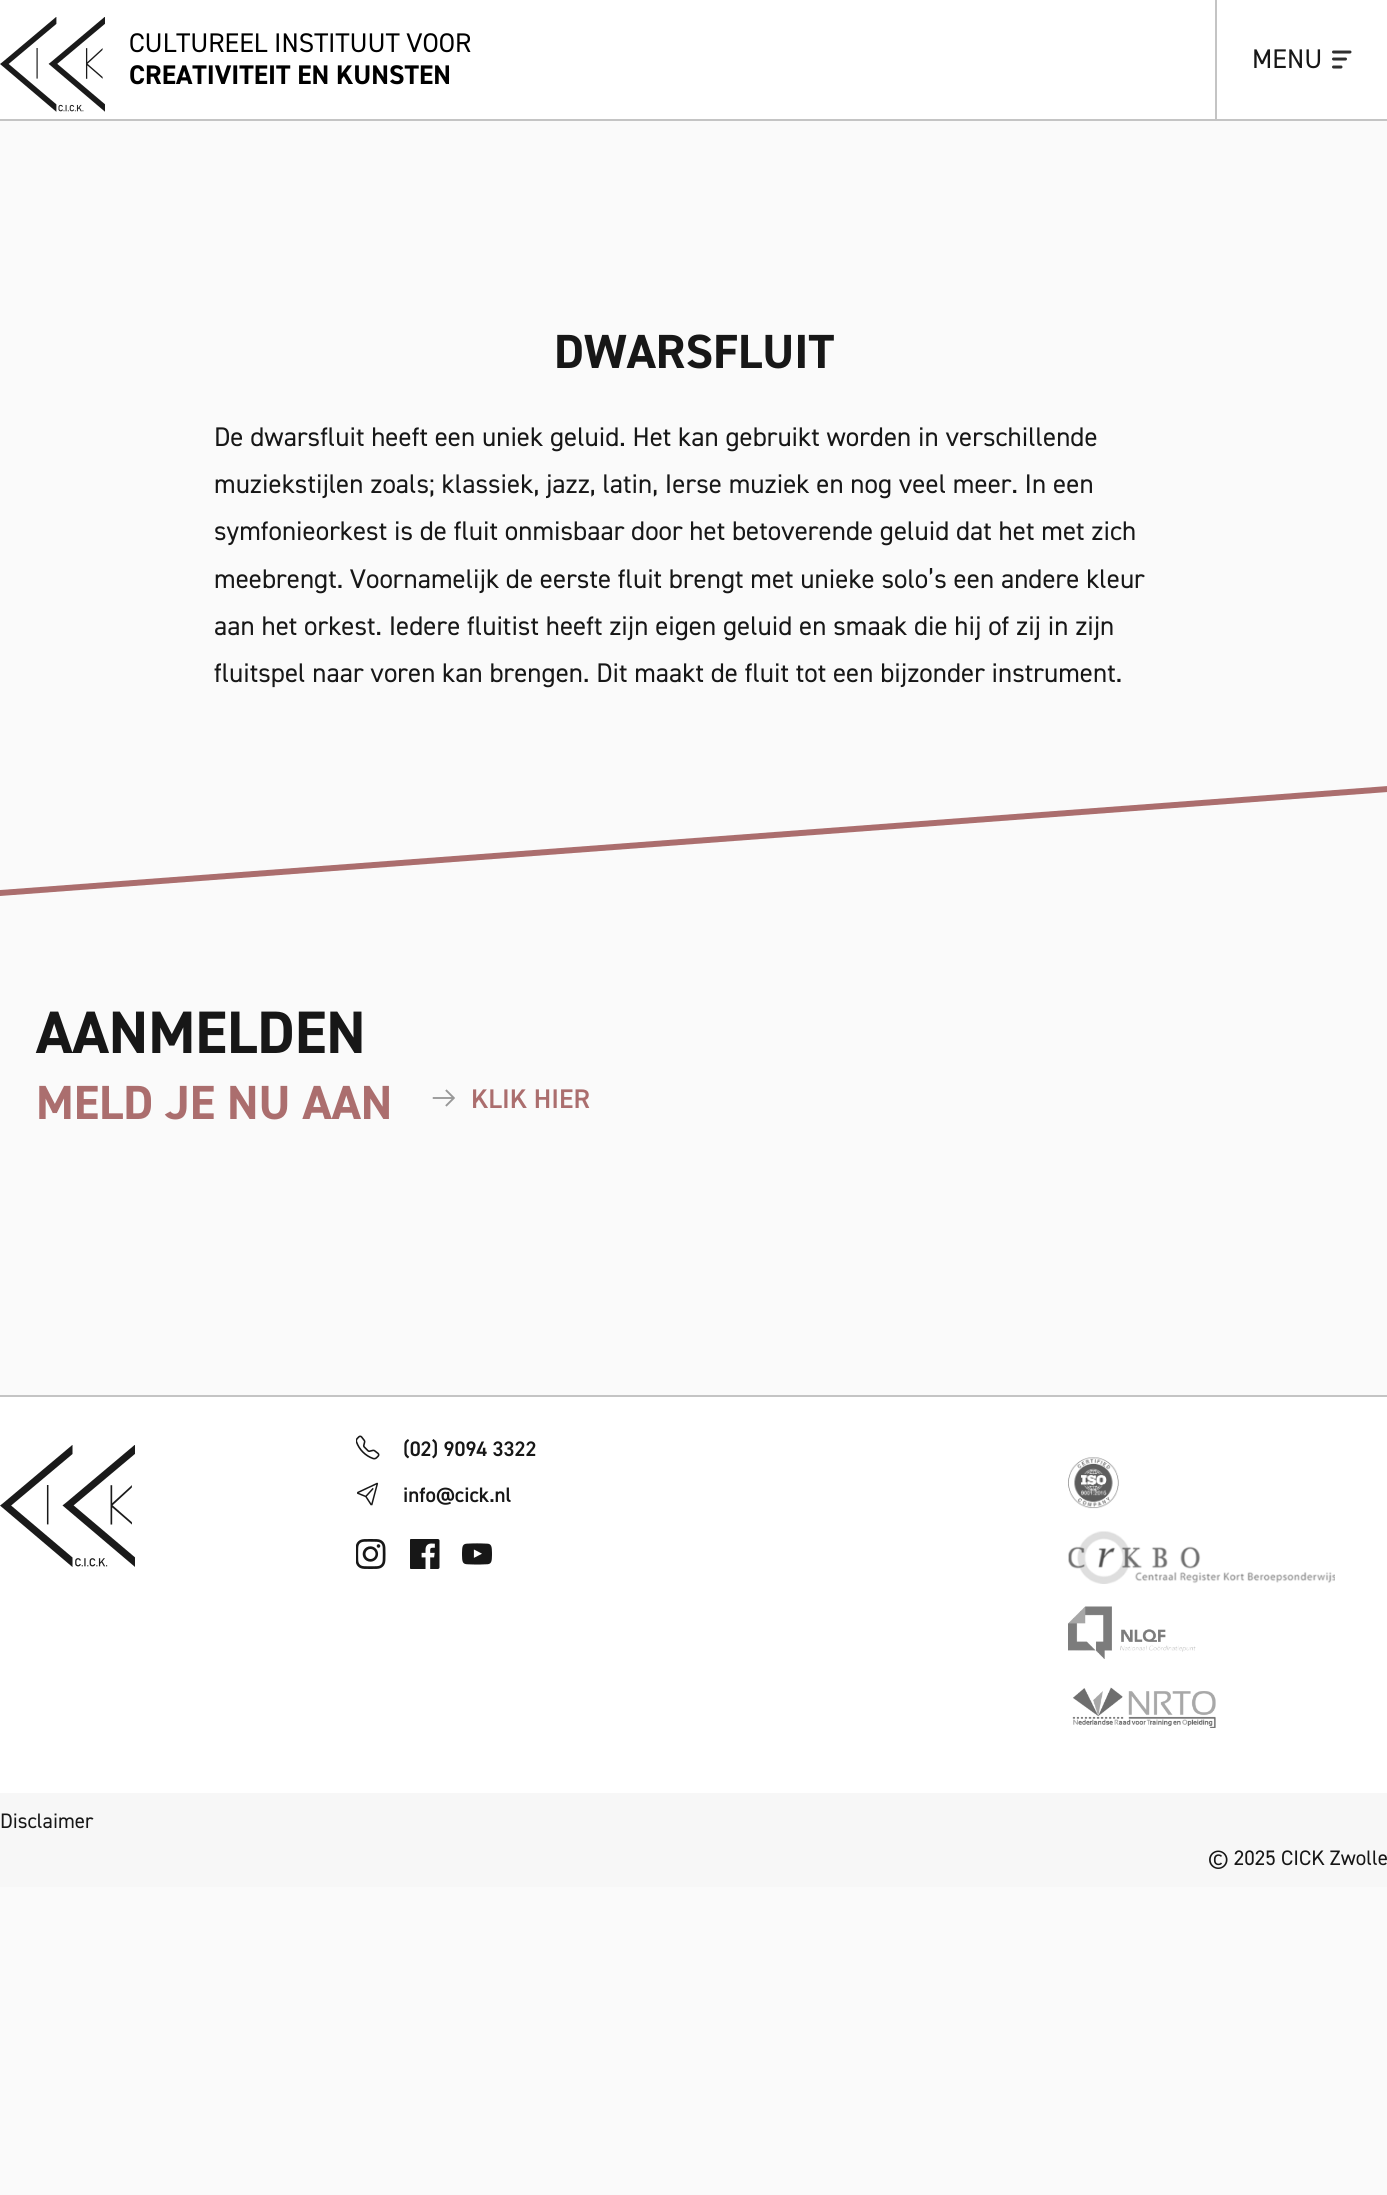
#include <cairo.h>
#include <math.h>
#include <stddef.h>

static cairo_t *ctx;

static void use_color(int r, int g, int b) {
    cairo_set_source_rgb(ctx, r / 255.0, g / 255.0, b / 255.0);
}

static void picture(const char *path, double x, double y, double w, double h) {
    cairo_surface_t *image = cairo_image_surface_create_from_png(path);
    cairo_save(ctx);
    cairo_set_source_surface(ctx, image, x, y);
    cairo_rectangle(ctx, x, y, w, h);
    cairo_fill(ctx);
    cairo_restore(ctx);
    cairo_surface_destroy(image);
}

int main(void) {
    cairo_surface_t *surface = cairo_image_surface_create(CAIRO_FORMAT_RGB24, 1387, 2195);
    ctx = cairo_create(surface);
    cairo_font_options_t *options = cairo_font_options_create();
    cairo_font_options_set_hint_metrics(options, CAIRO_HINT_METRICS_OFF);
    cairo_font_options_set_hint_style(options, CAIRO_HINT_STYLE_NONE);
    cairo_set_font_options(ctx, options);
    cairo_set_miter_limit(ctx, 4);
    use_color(250, 250, 250);
    cairo_paint(ctx);
    use_color(255, 255, 255);
    cairo_rectangle(ctx, 0, 0, 1387, 119);
    cairo_fill(ctx);
    use_color(196, 196, 196);
    cairo_rectangle(ctx, 0, 119, 1387, 2);
    cairo_fill(ctx);
    picture("img1.png", 0, 17, 105, 95);
    cairo_select_font_face(ctx, "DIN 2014", CAIRO_FONT_SLANT_NORMAL, CAIRO_FONT_WEIGHT_NORMAL);
    cairo_set_font_size(ctx, 27);
    use_color(0, 0, 0);
    cairo_move_to(ctx, 129, 52);
    cairo_show_text(ctx, "CULTUREEL INSTITUUT VOOR");
    cairo_select_font_face(ctx, "DIN 2014", CAIRO_FONT_SLANT_NORMAL, CAIRO_FONT_WEIGHT_BOLD);
    cairo_move_to(ctx, 129, 84);
    cairo_show_text(ctx, "CREATIVITEIT EN KUNSTEN");
    use_color(196, 196, 196);
    cairo_rectangle(ctx, 1215, 0, 2, 119);
    cairo_fill(ctx);
    cairo_select_font_face(ctx, "DIN 2014", CAIRO_FONT_SLANT_NORMAL, CAIRO_FONT_WEIGHT_NORMAL);
    use_color(23, 23, 23);
    cairo_move_to(ctx, 1252, 68);
    cairo_show_text(ctx, "MENU");
    cairo_new_path(ctx);
    cairo_move_to(ctx, 1333.5, 52);
    cairo_line_to(ctx, 1350, 52);
    cairo_move_to(ctx, 1333.5, 59);
    cairo_line_to(ctx, 1345.5, 59);
    cairo_move_to(ctx, 1333.5, 67);
    cairo_line_to(ctx, 1341, 67);
    use_color(47, 47, 47);
    cairo_set_line_width(ctx, 3);
    cairo_set_line_cap(ctx, CAIRO_LINE_CAP_ROUND);
    cairo_stroke(ctx);
    cairo_select_font_face(ctx, "DIN 2014", CAIRO_FONT_SLANT_NORMAL, CAIRO_FONT_WEIGHT_BOLD);
    cairo_set_font_size(ctx, 48);
    use_color(23, 23, 23);
    cairo_move_to(ctx, 554, 368);
    cairo_show_text(ctx, "DWARSFLUIT");
    cairo_select_font_face(ctx, "DIN 2014", CAIRO_FONT_SLANT_NORMAL, CAIRO_FONT_WEIGHT_NORMAL);
    cairo_set_font_size(ctx, 27);
    cairo_move_to(ctx, 214, 446);
    cairo_show_text(ctx, "De dwarsfluit heeft een uniek geluid. Het kan gebruikt worden in verschillende");
    cairo_move_to(ctx, 214, 493);
    cairo_show_text(ctx, "muziekstijlen zoals; klassiek, jazz, latin, Ierse muziek en nog veel meer. In een");
    cairo_move_to(ctx, 214, 540);
    cairo_show_text(ctx, "symfonieorkest is de fluit onmisbaar door het betoverende geluid dat het met zich");
    cairo_move_to(ctx, 214, 588);
    cairo_show_text(ctx, "meebrengt. Voornamelijk de eerste fluit brengt met unieke solo’s een andere kleur");
    cairo_move_to(ctx, 214, 635);
    cairo_show_text(ctx, "aan het orkest. Iedere fluitist heeft zijn eigen geluid en smaak die hij of zij in zijn");
    cairo_move_to(ctx, 214, 682);
    cairo_show_text(ctx, "fluitspel naar voren kan brengen. Dit maakt de fluit tot een bijzonder instrument.");
    use_color(171, 110, 110);
    cairo_new_path(ctx);
    cairo_move_to(ctx, 0, 890);
    cairo_line_to(ctx, 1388, 786);
    cairo_line_to(ctx, 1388, 792);
    cairo_line_to(ctx, 0, 896);
    cairo_close_path(ctx);
    cairo_fill(ctx);
    cairo_select_font_face(ctx, "DIN 2014", CAIRO_FONT_SLANT_NORMAL, CAIRO_FONT_WEIGHT_BOLD);
    cairo_set_font_size(ctx, 60);
    use_color(23, 23, 23);
    cairo_move_to(ctx, 36, 1053);
    cairo_show_text(ctx, "AANMELDEN");
    cairo_set_font_size(ctx, 48);
    use_color(171, 110, 110);
    cairo_move_to(ctx, 36, 1119);
    cairo_show_text(ctx, "MELD JE NU AAN");
    picture("img2.png", 432, 1089, 23, 18);
    cairo_select_font_face(ctx, "DIN 2014 SemiBold", CAIRO_FONT_SLANT_NORMAL, CAIRO_FONT_WEIGHT_NORMAL);
    cairo_set_font_size(ctx, 27);
    cairo_move_to(ctx, 471, 1108);
    cairo_show_text(ctx, "KLIK HIER");
    use_color(255, 255, 255);
    cairo_rectangle(ctx, 0, 1397, 1387, 396);
    cairo_fill(ctx);
    use_color(196, 196, 196);
    cairo_rectangle(ctx, 0, 1395, 1387, 2);
    cairo_fill(ctx);
    picture("img3.png", 0, 1445, 135, 122);
    picture("img4.png", 356, 1435, 24, 25);
    cairo_set_font_size(ctx, 21);
    use_color(23, 23, 23);
    cairo_move_to(ctx, 403, 1456);
    cairo_show_text(ctx, "(02) 9094 3322");
    picture("img5.png", 357, 1482, 22, 24);
    cairo_move_to(ctx, 403, 1502);
    cairo_show_text(ctx, "info@cick.nl");
    picture("img6.png", 356, 1539, 30, 30);
    picture("img7.png", 410, 1539, 30, 30);
    picture("img8.png", 462, 1543, 30, 22);
    picture("img9.png", 1068, 1457, 51, 52);
    picture("img10.png", 1068, 1531, 267, 53);
    picture("img11.png", 1068, 1606, 128, 53);
    picture("img12.png", 1072, 1687, 144, 41);
    use_color(247, 247, 247);
    cairo_rectangle(ctx, 0, 1793, 1387, 94);
    cairo_fill(ctx);
    cairo_select_font_face(ctx, "DIN 2014", CAIRO_FONT_SLANT_NORMAL, CAIRO_FONT_WEIGHT_NORMAL);
    use_color(23, 23, 23);
    cairo_move_to(ctx, 0, 1828);
    cairo_show_text(ctx, "Disclaimer");
    cairo_move_to(ctx, 1208, 1865);
    cairo_show_text(ctx, "© 2025 CICK Zwolle");
    cairo_surface_write_to_png(surface, "result.png");
    cairo_font_options_destroy(options);
    cairo_destroy(ctx);
    cairo_surface_destroy(surface);
    return 0;
}
